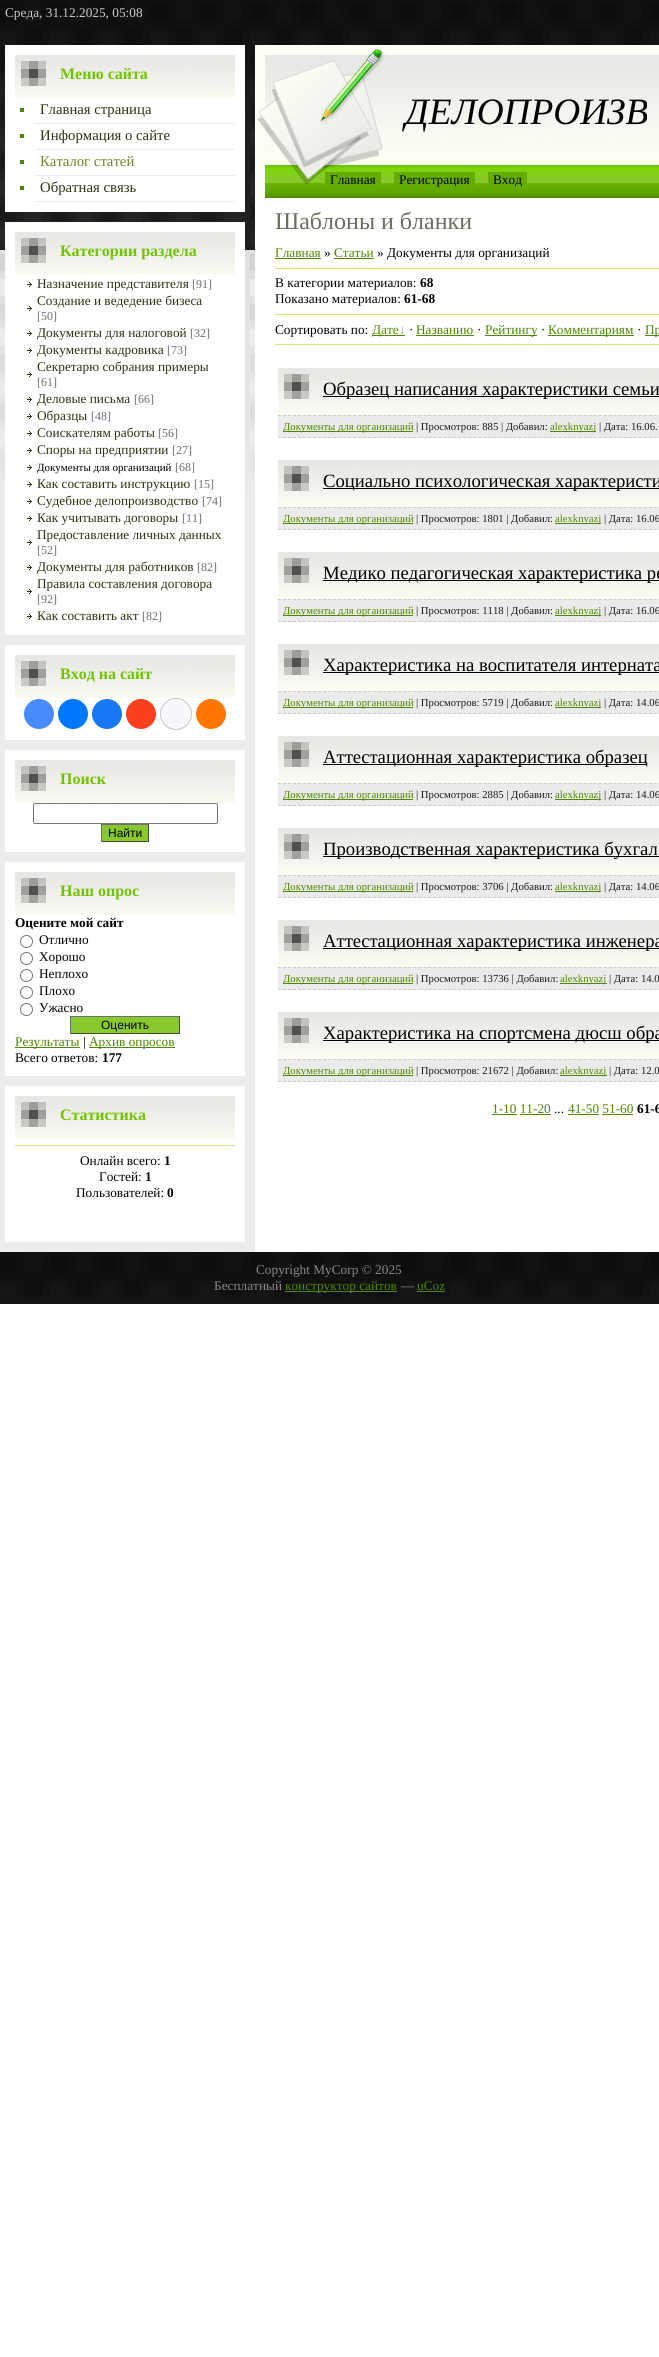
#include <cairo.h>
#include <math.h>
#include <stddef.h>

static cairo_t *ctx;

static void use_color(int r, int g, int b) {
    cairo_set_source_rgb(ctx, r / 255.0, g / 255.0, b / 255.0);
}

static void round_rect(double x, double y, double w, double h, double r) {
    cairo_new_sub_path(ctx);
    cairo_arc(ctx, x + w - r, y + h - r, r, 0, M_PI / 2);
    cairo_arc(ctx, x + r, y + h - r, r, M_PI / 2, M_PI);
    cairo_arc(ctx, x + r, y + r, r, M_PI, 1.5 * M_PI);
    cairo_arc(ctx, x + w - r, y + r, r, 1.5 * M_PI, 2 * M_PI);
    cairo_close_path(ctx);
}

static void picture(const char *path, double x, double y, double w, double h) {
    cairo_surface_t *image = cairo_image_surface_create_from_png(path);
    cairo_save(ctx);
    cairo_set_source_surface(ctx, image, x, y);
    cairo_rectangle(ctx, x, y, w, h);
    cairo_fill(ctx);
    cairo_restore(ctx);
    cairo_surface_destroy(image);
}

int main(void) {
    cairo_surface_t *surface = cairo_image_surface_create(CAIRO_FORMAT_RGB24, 659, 2357);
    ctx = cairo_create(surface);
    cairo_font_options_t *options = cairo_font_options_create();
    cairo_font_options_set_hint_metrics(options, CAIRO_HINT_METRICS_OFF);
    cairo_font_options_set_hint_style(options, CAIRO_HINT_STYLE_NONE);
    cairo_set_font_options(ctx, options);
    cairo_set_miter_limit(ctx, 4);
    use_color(255, 255, 255);
    cairo_paint(ctx);
    use_color(236, 236, 236);
    cairo_rectangle(ctx, 0, 496, 255, 756);
    cairo_fill(ctx);
    picture("img1.png", 0, 0, 659, 496);
    cairo_select_font_face(ctx, "Liberation Serif", CAIRO_FONT_SLANT_NORMAL, CAIRO_FONT_WEIGHT_NORMAL);
    cairo_set_font_size(ctx, 13.3);
    use_color(204, 204, 204);
    cairo_move_to(ctx, 5, 17);
    cairo_show_text(ctx, "Среда, 31.12.2025, 05:08");
    use_color(255, 255, 255);
    cairo_rectangle(ctx, 5, 45, 240, 167);
    cairo_fill(ctx);
    picture("img2.png", 15, 55, 220, 43);
    cairo_select_font_face(ctx, "Liberation Serif", CAIRO_FONT_SLANT_NORMAL, CAIRO_FONT_WEIGHT_BOLD);
    cairo_set_font_size(ctx, 16);
    use_color(113, 194, 0);
    cairo_move_to(ctx, 60, 79);
    cairo_show_text(ctx, "Меню сайта");
    use_color(236, 236, 236);
    cairo_rectangle(ctx, 35, 123, 200, 1);
    cairo_fill(ctx);
    use_color(78, 135, 0);
    cairo_rectangle(ctx, 20, 108, 4, 4);
    cairo_fill(ctx);
    cairo_select_font_face(ctx, "Liberation Serif", CAIRO_FONT_SLANT_NORMAL, CAIRO_FONT_WEIGHT_NORMAL);
    cairo_set_font_size(ctx, 14.75);
    use_color(43, 52, 20);
    cairo_move_to(ctx, 40, 114);
    cairo_show_text(ctx, "Главная страница");
    use_color(236, 236, 236);
    cairo_rectangle(ctx, 35, 149, 200, 1);
    cairo_fill(ctx);
    use_color(78, 135, 0);
    cairo_rectangle(ctx, 20, 134, 4, 4);
    cairo_fill(ctx);
    use_color(43, 52, 20);
    cairo_move_to(ctx, 40, 140);
    cairo_show_text(ctx, "Информация о сайте");
    use_color(236, 236, 236);
    cairo_rectangle(ctx, 35, 175, 200, 1);
    cairo_fill(ctx);
    use_color(78, 135, 0);
    cairo_rectangle(ctx, 20, 160, 4, 4);
    cairo_fill(ctx);
    use_color(112, 133, 37);
    cairo_move_to(ctx, 40, 166);
    cairo_show_text(ctx, "Каталог статей");
    use_color(236, 236, 236);
    cairo_rectangle(ctx, 35, 201, 200, 1);
    cairo_fill(ctx);
    use_color(78, 135, 0);
    cairo_rectangle(ctx, 20, 186, 4, 4);
    cairo_fill(ctx);
    use_color(43, 52, 20);
    cairo_move_to(ctx, 40, 192);
    cairo_show_text(ctx, "Обратная связь");
    use_color(255, 255, 255);
    cairo_rectangle(ctx, 5, 222, 240, 413);
    cairo_fill(ctx);
    picture("img2.png", 15, 232, 220, 43);
    cairo_select_font_face(ctx, "Liberation Serif", CAIRO_FONT_SLANT_NORMAL, CAIRO_FONT_WEIGHT_BOLD);
    cairo_set_font_size(ctx, 16);
    use_color(113, 194, 0);
    cairo_move_to(ctx, 60, 256);
    cairo_show_text(ctx, "Категории раздела");
    picture("img3.png", 27, 282, 5, 5);
    cairo_select_font_face(ctx, "Liberation Serif", CAIRO_FONT_SLANT_NORMAL, CAIRO_FONT_WEIGHT_NORMAL);
    cairo_set_font_size(ctx, 13.3);
    use_color(43, 52, 20);
    cairo_move_to(ctx, 37, 288);
    cairo_show_text(ctx, "Назначение представителя");
    cairo_set_font_size(ctx, 12);
    use_color(110, 110, 110);
    cairo_move_to(ctx, 192, 288);
    cairo_show_text(ctx, "[91]");
    picture("img3.png", 27, 306, 5, 5);
    cairo_set_font_size(ctx, 13.3);
    use_color(43, 52, 20);
    cairo_move_to(ctx, 37, 305);
    cairo_show_text(ctx, "Создание и ведедение бизеса");
    cairo_set_font_size(ctx, 12);
    use_color(110, 110, 110);
    cairo_move_to(ctx, 37, 320);
    cairo_show_text(ctx, "[50]");
    picture("img3.png", 27, 331, 5, 5);
    cairo_set_font_size(ctx, 13.3);
    use_color(43, 52, 20);
    cairo_move_to(ctx, 37, 337);
    cairo_show_text(ctx, "Документы для налоговой");
    cairo_set_font_size(ctx, 12);
    use_color(110, 110, 110);
    cairo_move_to(ctx, 190, 337);
    cairo_show_text(ctx, "[32]");
    picture("img3.png", 27, 348, 5, 5);
    cairo_set_font_size(ctx, 13.3);
    use_color(43, 52, 20);
    cairo_move_to(ctx, 37, 354);
    cairo_show_text(ctx, "Документы кадровика");
    cairo_set_font_size(ctx, 12);
    use_color(110, 110, 110);
    cairo_move_to(ctx, 167, 354);
    cairo_show_text(ctx, "[73]");
    picture("img3.png", 27, 372, 5, 5);
    cairo_set_font_size(ctx, 13.3);
    use_color(43, 52, 20);
    cairo_move_to(ctx, 37, 371);
    cairo_show_text(ctx, "Секретарю собрания примеры");
    cairo_set_font_size(ctx, 12);
    use_color(110, 110, 110);
    cairo_move_to(ctx, 37, 386);
    cairo_show_text(ctx, "[61]");
    picture("img3.png", 27, 397, 5, 5);
    cairo_set_font_size(ctx, 13.3);
    use_color(43, 52, 20);
    cairo_move_to(ctx, 37, 403);
    cairo_show_text(ctx, "Деловые письма");
    cairo_set_font_size(ctx, 12);
    use_color(110, 110, 110);
    cairo_move_to(ctx, 134, 403);
    cairo_show_text(ctx, "[66]");
    picture("img3.png", 27, 414, 5, 5);
    cairo_set_font_size(ctx, 13.3);
    use_color(43, 52, 20);
    cairo_move_to(ctx, 37, 420);
    cairo_show_text(ctx, "Образцы");
    cairo_set_font_size(ctx, 12);
    use_color(110, 110, 110);
    cairo_move_to(ctx, 91, 420);
    cairo_show_text(ctx, "[48]");
    picture("img3.png", 27, 431, 5, 5);
    cairo_set_font_size(ctx, 13.3);
    use_color(43, 52, 20);
    cairo_move_to(ctx, 37, 437);
    cairo_show_text(ctx, "Соискателям работы");
    cairo_set_font_size(ctx, 12);
    use_color(110, 110, 110);
    cairo_move_to(ctx, 158, 437);
    cairo_show_text(ctx, "[56]");
    picture("img3.png", 27, 448, 5, 5);
    cairo_set_font_size(ctx, 13.3);
    use_color(43, 52, 20);
    cairo_move_to(ctx, 37, 454);
    cairo_show_text(ctx, "Споры на предприятии");
    cairo_set_font_size(ctx, 12);
    use_color(110, 110, 110);
    cairo_move_to(ctx, 172, 454);
    cairo_show_text(ctx, "[27]");
    picture("img3.png", 27, 465, 5, 5);
    cairo_set_font_size(ctx, 11);
    use_color(0, 0, 0);
    cairo_move_to(ctx, 37, 471);
    cairo_show_text(ctx, "Документы для организаций");
    cairo_set_font_size(ctx, 12);
    use_color(110, 110, 110);
    cairo_move_to(ctx, 175, 471);
    cairo_show_text(ctx, "[68]");
    picture("img3.png", 27, 482, 5, 5);
    cairo_set_font_size(ctx, 13.3);
    use_color(43, 52, 20);
    cairo_move_to(ctx, 37, 488);
    cairo_show_text(ctx, "Как составить инструкцию");
    cairo_set_font_size(ctx, 12);
    use_color(110, 110, 110);
    cairo_move_to(ctx, 194, 488);
    cairo_show_text(ctx, "[15]");
    picture("img3.png", 27, 499, 5, 5);
    cairo_set_font_size(ctx, 13.3);
    use_color(43, 52, 20);
    cairo_move_to(ctx, 37, 505);
    cairo_show_text(ctx, "Судебное делопроизводство");
    cairo_set_font_size(ctx, 12);
    use_color(110, 110, 110);
    cairo_move_to(ctx, 202, 505);
    cairo_show_text(ctx, "[74]");
    picture("img3.png", 27, 516, 5, 5);
    cairo_set_font_size(ctx, 13.3);
    use_color(43, 52, 20);
    cairo_move_to(ctx, 37, 522);
    cairo_show_text(ctx, "Как учитывать договоры");
    cairo_set_font_size(ctx, 12);
    use_color(110, 110, 110);
    cairo_move_to(ctx, 182, 522);
    cairo_show_text(ctx, "[11]");
    picture("img3.png", 27, 540, 5, 5);
    cairo_set_font_size(ctx, 13.3);
    use_color(43, 52, 20);
    cairo_move_to(ctx, 37, 539);
    cairo_show_text(ctx, "Предоставление личных данных");
    cairo_set_font_size(ctx, 12);
    use_color(110, 110, 110);
    cairo_move_to(ctx, 37, 554);
    cairo_show_text(ctx, "[52]");
    picture("img3.png", 27, 565, 5, 5);
    cairo_set_font_size(ctx, 13.3);
    use_color(43, 52, 20);
    cairo_move_to(ctx, 37, 571);
    cairo_show_text(ctx, "Документы для работников");
    cairo_set_font_size(ctx, 12);
    use_color(110, 110, 110);
    cairo_move_to(ctx, 197, 571);
    cairo_show_text(ctx, "[82]");
    picture("img3.png", 27, 589, 5, 5);
    cairo_set_font_size(ctx, 13.3);
    use_color(43, 52, 20);
    cairo_move_to(ctx, 37, 588);
    cairo_show_text(ctx, "Правила составления договора");
    cairo_set_font_size(ctx, 12);
    use_color(110, 110, 110);
    cairo_move_to(ctx, 37, 603);
    cairo_show_text(ctx, "[92]");
    picture("img3.png", 27, 614, 5, 5);
    cairo_set_font_size(ctx, 13.3);
    use_color(43, 52, 20);
    cairo_move_to(ctx, 37, 620);
    cairo_show_text(ctx, "Как составить акт");
    cairo_set_font_size(ctx, 12);
    use_color(110, 110, 110);
    cairo_move_to(ctx, 142, 620);
    cairo_show_text(ctx, "[82]");
    use_color(255, 255, 255);
    cairo_rectangle(ctx, 5, 645, 240, 95);
    cairo_fill(ctx);
    picture("img2.png", 15, 655, 220, 43);
    cairo_select_font_face(ctx, "Liberation Serif", CAIRO_FONT_SLANT_NORMAL, CAIRO_FONT_WEIGHT_BOLD);
    cairo_set_font_size(ctx, 16);
    use_color(113, 194, 0);
    cairo_move_to(ctx, 60, 679);
    cairo_show_text(ctx, "Вход на сайт");
    use_color(73, 139, 250);
    cairo_new_path(ctx);
    cairo_arc(ctx, 39, 714, 15, 0, 2 * M_PI);
    cairo_fill(ctx);
    use_color(0, 119, 255);
    cairo_arc(ctx, 73, 714, 15, 0, 2 * M_PI);
    cairo_fill(ctx);
    use_color(24, 119, 242);
    cairo_arc(ctx, 107, 714, 15, 0, 2 * M_PI);
    cairo_fill(ctx);
    use_color(252, 63, 29);
    cairo_arc(ctx, 141, 714, 15, 0, 2 * M_PI);
    cairo_fill(ctx);
    use_color(248, 248, 252);
    cairo_arc(ctx, 176, 714, 15.5, 0, 2 * M_PI);
    cairo_fill_preserve(ctx);
    use_color(196, 196, 196);
    cairo_set_line_width(ctx, 1);
    cairo_stroke(ctx);
    use_color(255, 119, 0);
    cairo_arc(ctx, 211, 714, 15, 0, 2 * M_PI);
    cairo_fill(ctx);
    use_color(255, 255, 255);
    cairo_rectangle(ctx, 5, 750, 240, 102);
    cairo_fill(ctx);
    picture("img2.png", 15, 760, 220, 43);
    use_color(113, 194, 0);
    cairo_move_to(ctx, 60, 784);
    cairo_show_text(ctx, "Поиск");
    round_rect(33.5, 803.5, 184, 20, 1.5);
    use_color(118, 118, 118);
    cairo_stroke(ctx);
    use_color(136, 201, 45);
    cairo_rectangle(ctx, 102, 825, 46, 16);
    cairo_fill(ctx);
    use_color(110, 110, 110);
    cairo_rectangle(ctx, 101, 824, 48, 1);
    cairo_fill(ctx);
    use_color(73, 73, 73);
    cairo_rectangle(ctx, 148, 824, 1, 18);
    cairo_fill(ctx);
    cairo_rectangle(ctx, 101, 841, 48, 1);
    cairo_fill(ctx);
    use_color(110, 110, 110);
    cairo_rectangle(ctx, 101, 824, 1, 18);
    cairo_fill(ctx);
    cairo_select_font_face(ctx, "Liberation Sans", CAIRO_FONT_SLANT_NORMAL, CAIRO_FONT_WEIGHT_NORMAL);
    cairo_set_font_size(ctx, 12);
    use_color(0, 0, 0);
    cairo_move_to(ctx, 108, 837);
    cairo_show_text(ctx, "Найти");
    use_color(255, 255, 255);
    cairo_rectangle(ctx, 5, 862, 240, 214);
    cairo_fill(ctx);
    picture("img2.png", 15, 872, 220, 43);
    cairo_select_font_face(ctx, "Liberation Serif", CAIRO_FONT_SLANT_NORMAL, CAIRO_FONT_WEIGHT_BOLD);
    cairo_set_font_size(ctx, 16);
    use_color(113, 194, 0);
    cairo_move_to(ctx, 60, 896);
    cairo_show_text(ctx, "Наш опрос");
    cairo_set_font_size(ctx, 13.3);
    use_color(0, 0, 0);
    cairo_move_to(ctx, 15, 927);
    cairo_show_text(ctx, "Оцените мой сайт");
    cairo_new_path(ctx);
    cairo_arc(ctx, 26.5, 941.5, 6, 0, 2 * M_PI);
    use_color(118, 118, 118);
    cairo_stroke(ctx);
    cairo_select_font_face(ctx, "Liberation Serif", CAIRO_FONT_SLANT_NORMAL, CAIRO_FONT_WEIGHT_NORMAL);
    use_color(0, 0, 0);
    cairo_move_to(ctx, 39, 944);
    cairo_show_text(ctx, "Отлично");
    cairo_new_path(ctx);
    cairo_arc(ctx, 26.5, 958.5, 6, 0, 2 * M_PI);
    use_color(118, 118, 118);
    cairo_stroke(ctx);
    use_color(0, 0, 0);
    cairo_move_to(ctx, 39, 961);
    cairo_show_text(ctx, "Хорошо");
    cairo_new_path(ctx);
    cairo_arc(ctx, 26.5, 975.5, 6, 0, 2 * M_PI);
    use_color(118, 118, 118);
    cairo_stroke(ctx);
    use_color(0, 0, 0);
    cairo_move_to(ctx, 39, 978);
    cairo_show_text(ctx, "Неплохо");
    cairo_new_path(ctx);
    cairo_arc(ctx, 26.5, 992.5, 6, 0, 2 * M_PI);
    use_color(118, 118, 118);
    cairo_stroke(ctx);
    use_color(0, 0, 0);
    cairo_move_to(ctx, 39, 995);
    cairo_show_text(ctx, "Плохо");
    cairo_new_path(ctx);
    cairo_arc(ctx, 26.5, 1009.5, 6, 0, 2 * M_PI);
    use_color(118, 118, 118);
    cairo_stroke(ctx);
    use_color(0, 0, 0);
    cairo_move_to(ctx, 39, 1012);
    cairo_show_text(ctx, "Ужасно");
    use_color(136, 201, 45);
    cairo_rectangle(ctx, 71, 1017, 108, 16);
    cairo_fill(ctx);
    use_color(110, 110, 110);
    cairo_rectangle(ctx, 70, 1016, 110, 1);
    cairo_fill(ctx);
    use_color(73, 73, 73);
    cairo_rectangle(ctx, 179, 1016, 1, 18);
    cairo_fill(ctx);
    cairo_rectangle(ctx, 70, 1033, 110, 1);
    cairo_fill(ctx);
    use_color(110, 110, 110);
    cairo_rectangle(ctx, 70, 1016, 1, 18);
    cairo_fill(ctx);
    cairo_select_font_face(ctx, "Liberation Sans", CAIRO_FONT_SLANT_NORMAL, CAIRO_FONT_WEIGHT_NORMAL);
    cairo_set_font_size(ctx, 12);
    use_color(0, 0, 0);
    cairo_move_to(ctx, 101, 1029);
    cairo_show_text(ctx, "Оценить");
    use_color(78, 135, 0);
    cairo_rectangle(ctx, 15, 1047, 65, 1);
    cairo_fill(ctx);
    cairo_select_font_face(ctx, "Liberation Serif", CAIRO_FONT_SLANT_NORMAL, CAIRO_FONT_WEIGHT_NORMAL);
    cairo_set_font_size(ctx, 13.3);
    cairo_move_to(ctx, 15, 1046);
    cairo_show_text(ctx, "Результаты");
    use_color(0, 0, 0);
    cairo_move_to(ctx, 83, 1046);
    cairo_show_text(ctx, "|");
    use_color(78, 135, 0);
    cairo_rectangle(ctx, 89, 1047, 86, 1);
    cairo_fill(ctx);
    cairo_move_to(ctx, 89, 1046);
    cairo_show_text(ctx, "Архив опросов");
    use_color(0, 0, 0);
    cairo_move_to(ctx, 15, 1062);
    cairo_show_text(ctx, "Всего ответов:");
    cairo_select_font_face(ctx, "Liberation Serif", CAIRO_FONT_SLANT_NORMAL, CAIRO_FONT_WEIGHT_BOLD);
    cairo_move_to(ctx, 102, 1062);
    cairo_show_text(ctx, "177");
    use_color(255, 255, 255);
    cairo_rectangle(ctx, 5, 1086, 240, 156);
    cairo_fill(ctx);
    picture("img2.png", 15, 1096, 220, 43);
    cairo_set_font_size(ctx, 16);
    use_color(113, 194, 0);
    cairo_move_to(ctx, 60, 1120);
    cairo_show_text(ctx, "Статистика");
    use_color(214, 227, 125);
    cairo_rectangle(ctx, 15, 1145, 220, 1);
    cairo_fill(ctx);
    cairo_select_font_face(ctx, "Liberation Serif", CAIRO_FONT_SLANT_NORMAL, CAIRO_FONT_WEIGHT_NORMAL);
    cairo_set_font_size(ctx, 13.3);
    use_color(0, 0, 0);
    cairo_move_to(ctx, 80, 1165);
    cairo_show_text(ctx, "Онлайн всего:");
    cairo_select_font_face(ctx, "Liberation Serif", CAIRO_FONT_SLANT_NORMAL, CAIRO_FONT_WEIGHT_BOLD);
    cairo_move_to(ctx, 164, 1165);
    cairo_show_text(ctx, "1");
    cairo_select_font_face(ctx, "Liberation Serif", CAIRO_FONT_SLANT_NORMAL, CAIRO_FONT_WEIGHT_NORMAL);
    cairo_move_to(ctx, 99, 1181);
    cairo_show_text(ctx, "Гостей:");
    cairo_select_font_face(ctx, "Liberation Serif", CAIRO_FONT_SLANT_NORMAL, CAIRO_FONT_WEIGHT_BOLD);
    cairo_move_to(ctx, 145, 1181);
    cairo_show_text(ctx, "1");
    cairo_select_font_face(ctx, "Liberation Serif", CAIRO_FONT_SLANT_NORMAL, CAIRO_FONT_WEIGHT_NORMAL);
    cairo_move_to(ctx, 76, 1197);
    cairo_show_text(ctx, "Пользователей:");
    cairo_select_font_face(ctx, "Liberation Serif", CAIRO_FONT_SLANT_NORMAL, CAIRO_FONT_WEIGHT_BOLD);
    cairo_move_to(ctx, 167, 1197);
    cairo_show_text(ctx, "0");
    use_color(255, 255, 255);
    cairo_rectangle(ctx, 255, 198, 404, 298);
    cairo_fill(ctx);
    picture("img4.png", 255, 45, 404, 153);
    cairo_select_font_face(ctx, "Liberation Serif", CAIRO_FONT_SLANT_ITALIC, CAIRO_FONT_WEIGHT_NORMAL);
    cairo_set_font_size(ctx, 37.25);
    use_color(0, 0, 0);
    cairo_move_to(ctx, 405, 124);
    cairo_show_text(ctx, "ДЕЛОПРОИЗВ");
    use_color(100, 173, 0);
    cairo_rectangle(ctx, 325, 172, 56, 15);
    cairo_fill(ctx);
    cairo_select_font_face(ctx, "Liberation Serif", CAIRO_FONT_SLANT_NORMAL, CAIRO_FONT_WEIGHT_NORMAL);
    cairo_set_font_size(ctx, 13.3);
    use_color(0, 0, 0);
    cairo_move_to(ctx, 330, 184);
    cairo_show_text(ctx, "Главная");
    use_color(100, 173, 0);
    cairo_rectangle(ctx, 394, 172, 81, 15);
    cairo_fill(ctx);
    use_color(0, 0, 0);
    cairo_move_to(ctx, 399, 184);
    cairo_show_text(ctx, "Регистрация");
    use_color(100, 173, 0);
    cairo_rectangle(ctx, 488, 172, 39, 15);
    cairo_fill(ctx);
    use_color(0, 0, 0);
    cairo_move_to(ctx, 493, 184);
    cairo_show_text(ctx, "Вход");
    cairo_set_font_size(ctx, 24);
    use_color(107, 109, 94);
    cairo_move_to(ctx, 275, 229);
    cairo_show_text(ctx, "Шаблоны и бланки");
    cairo_set_font_size(ctx, 13.3);
    use_color(78, 135, 0);
    cairo_move_to(ctx, 275, 257);
    cairo_show_text(ctx, "Главная");
    cairo_rectangle(ctx, 275, 258, 46, 1);
    cairo_fill(ctx);
    use_color(0, 0, 0);
    cairo_move_to(ctx, 324, 257);
    cairo_show_text(ctx, "»");
    use_color(78, 135, 0);
    cairo_move_to(ctx, 334, 257);
    cairo_show_text(ctx, "Статьи");
    cairo_rectangle(ctx, 334, 258, 40, 1);
    cairo_fill(ctx);
    use_color(0, 0, 0);
    cairo_move_to(ctx, 377, 257);
    cairo_show_text(ctx, "» Документы для организаций");
    use_color(214, 227, 125);
    cairo_rectangle(ctx, 275, 268, 384, 1);
    cairo_fill(ctx);
    use_color(0, 0, 0);
    cairo_move_to(ctx, 275, 287);
    cairo_show_text(ctx, "В категории материалов:");
    cairo_select_font_face(ctx, "Liberation Serif", CAIRO_FONT_SLANT_NORMAL, CAIRO_FONT_WEIGHT_BOLD);
    cairo_move_to(ctx, 420, 287);
    cairo_show_text(ctx, "68");
    cairo_select_font_face(ctx, "Liberation Serif", CAIRO_FONT_SLANT_NORMAL, CAIRO_FONT_WEIGHT_NORMAL);
    cairo_move_to(ctx, 275, 303);
    cairo_show_text(ctx, "Показано материалов:");
    cairo_select_font_face(ctx, "Liberation Serif", CAIRO_FONT_SLANT_NORMAL, CAIRO_FONT_WEIGHT_BOLD);
    cairo_move_to(ctx, 404, 303);
    cairo_show_text(ctx, "61-68");
    use_color(214, 227, 125);
    cairo_rectangle(ctx, 275, 314, 384, 1);
    cairo_fill(ctx);
    cairo_select_font_face(ctx, "Liberation Serif", CAIRO_FONT_SLANT_NORMAL, CAIRO_FONT_WEIGHT_NORMAL);
    use_color(0, 0, 0);
    cairo_move_to(ctx, 275, 334);
    cairo_show_text(ctx, "Сортировать по:");
    use_color(78, 135, 0);
    cairo_rectangle(ctx, 372, 335, 33, 1);
    cairo_fill(ctx);
    cairo_move_to(ctx, 372, 334);
    cairo_show_text(ctx, "Дате");
    use_color(160, 160, 160);
    cairo_move_to(ctx, 399, 334);
    cairo_show_text(ctx, "↓");
    use_color(0, 0, 0);
    cairo_move_to(ctx, 409, 334);
    cairo_show_text(ctx, "·");
    use_color(78, 135, 0);
    cairo_move_to(ctx, 416, 334);
    cairo_show_text(ctx, "Названию");
    cairo_rectangle(ctx, 416, 335, 58, 1);
    cairo_fill(ctx);
    use_color(0, 0, 0);
    cairo_move_to(ctx, 477, 334);
    cairo_show_text(ctx, "·");
    use_color(78, 135, 0);
    cairo_rectangle(ctx, 485, 335, 52, 1);
    cairo_fill(ctx);
    cairo_move_to(ctx, 485, 334);
    cairo_show_text(ctx, "Рейтингу");
    use_color(0, 0, 0);
    cairo_move_to(ctx, 541, 334);
    cairo_show_text(ctx, "·");
    use_color(78, 135, 0);
    cairo_rectangle(ctx, 548, 335, 86, 1);
    cairo_fill(ctx);
    cairo_move_to(ctx, 548, 334);
    cairo_show_text(ctx, "Комментариям");
    use_color(0, 0, 0);
    cairo_move_to(ctx, 637, 334);
    cairo_show_text(ctx, "·");
    use_color(78, 135, 0);
    cairo_rectangle(ctx, 645, 335, 14, 1);
    cairo_fill(ctx);
    cairo_move_to(ctx, 645, 334);
    cairo_show_text(ctx, "Пр");
    use_color(214, 227, 125);
    cairo_rectangle(ctx, 275, 344, 384, 1);
    cairo_fill(ctx);
    picture("img5.png", 278, 368, 381, 47);
    use_color(0, 0, 0);
    cairo_rectangle(ctx, 323, 396, 336, 1);
    cairo_fill(ctx);
    cairo_set_font_size(ctx, 18.7);
    cairo_move_to(ctx, 323, 395);
    cairo_show_text(ctx, "Образец написания характеристики семьи");
    use_color(235, 235, 235);
    cairo_rectangle(ctx, 278, 415, 381, 23);
    cairo_fill(ctx);
    cairo_new_path(ctx);
    cairo_move_to(ctx, 278, 415.5);
    cairo_line_to(ctx, 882, 415.5);
    use_color(203, 206, 188);
    cairo_set_dash(ctx, (double[]){3, 2.01}, 2, 0);
    cairo_stroke(ctx);
    cairo_new_path(ctx);
    cairo_move_to(ctx, 278, 437.5);
    cairo_line_to(ctx, 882, 437.5);
    cairo_stroke(ctx);
    use_color(78, 135, 0);
    cairo_rectangle(ctx, 283, 431, 130, 1);
    cairo_fill(ctx);
    cairo_set_font_size(ctx, 10.7);
    cairo_move_to(ctx, 283, 430);
    cairo_show_text(ctx, "Документы для организаций");
    use_color(26, 26, 26);
    cairo_move_to(ctx, 416, 430);
    cairo_show_text(ctx, "| Просмотров: 885 | Добавил:");
    use_color(78, 135, 0);
    cairo_rectangle(ctx, 550, 431, 46, 1);
    cairo_fill(ctx);
    cairo_move_to(ctx, 550, 430);
    cairo_show_text(ctx, "alexknyazj");
    use_color(26, 26, 26);
    cairo_move_to(ctx, 599, 430);
    cairo_show_text(ctx, "| Дата: 16.06.");
    picture("img5.png", 278, 460, 381, 47);
    use_color(0, 0, 0);
    cairo_rectangle(ctx, 323, 488, 336, 1);
    cairo_fill(ctx);
    cairo_set_font_size(ctx, 18.7);
    cairo_move_to(ctx, 323, 487);
    cairo_show_text(ctx, "Социально психологическая характеристи");
    use_color(235, 235, 235);
    cairo_rectangle(ctx, 278, 507, 381, 23);
    cairo_fill(ctx);
    cairo_new_path(ctx);
    cairo_move_to(ctx, 278, 507.5);
    cairo_line_to(ctx, 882, 507.5);
    use_color(203, 206, 188);
    cairo_stroke(ctx);
    cairo_new_path(ctx);
    cairo_move_to(ctx, 278, 529.5);
    cairo_line_to(ctx, 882, 529.5);
    cairo_stroke(ctx);
    use_color(78, 135, 0);
    cairo_rectangle(ctx, 283, 523, 130, 1);
    cairo_fill(ctx);
    cairo_set_font_size(ctx, 10.7);
    cairo_move_to(ctx, 283, 522);
    cairo_show_text(ctx, "Документы для организаций");
    use_color(26, 26, 26);
    cairo_move_to(ctx, 416, 522);
    cairo_show_text(ctx, "| Просмотров: 1801 | Добавил:");
    use_color(78, 135, 0);
    cairo_rectangle(ctx, 555, 523, 46, 1);
    cairo_fill(ctx);
    cairo_move_to(ctx, 555, 522);
    cairo_show_text(ctx, "alexknyazj");
    use_color(26, 26, 26);
    cairo_move_to(ctx, 604, 522);
    cairo_show_text(ctx, "| Дата: 16.06");
    picture("img5.png", 278, 552, 381, 47);
    use_color(0, 0, 0);
    cairo_rectangle(ctx, 323, 580, 336, 1);
    cairo_fill(ctx);
    cairo_set_font_size(ctx, 18.7);
    cairo_move_to(ctx, 323, 579);
    cairo_show_text(ctx, "Медико педагогическая характеристика ре");
    use_color(235, 235, 235);
    cairo_rectangle(ctx, 278, 599, 381, 23);
    cairo_fill(ctx);
    cairo_new_path(ctx);
    cairo_move_to(ctx, 278, 599.5);
    cairo_line_to(ctx, 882, 599.5);
    use_color(203, 206, 188);
    cairo_stroke(ctx);
    cairo_new_path(ctx);
    cairo_move_to(ctx, 278, 621.5);
    cairo_line_to(ctx, 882, 621.5);
    cairo_stroke(ctx);
    use_color(78, 135, 0);
    cairo_rectangle(ctx, 283, 615, 130, 1);
    cairo_fill(ctx);
    cairo_set_font_size(ctx, 10.7);
    cairo_move_to(ctx, 283, 614);
    cairo_show_text(ctx, "Документы для организаций");
    use_color(26, 26, 26);
    cairo_move_to(ctx, 416, 614);
    cairo_show_text(ctx, "| Просмотров: 1118 | Добавил:");
    use_color(78, 135, 0);
    cairo_rectangle(ctx, 555, 615, 46, 1);
    cairo_fill(ctx);
    cairo_move_to(ctx, 555, 614);
    cairo_show_text(ctx, "alexknyazj");
    use_color(26, 26, 26);
    cairo_move_to(ctx, 604, 614);
    cairo_show_text(ctx, "| Дата: 16.06");
    picture("img5.png", 278, 644, 381, 47);
    use_color(0, 0, 0);
    cairo_rectangle(ctx, 323, 672, 336, 1);
    cairo_fill(ctx);
    cairo_set_font_size(ctx, 18.7);
    cairo_move_to(ctx, 323, 671);
    cairo_show_text(ctx, "Характеристика на воспитателя интерната");
    use_color(235, 235, 235);
    cairo_rectangle(ctx, 278, 691, 381, 23);
    cairo_fill(ctx);
    cairo_new_path(ctx);
    cairo_move_to(ctx, 278, 691.5);
    cairo_line_to(ctx, 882, 691.5);
    use_color(203, 206, 188);
    cairo_stroke(ctx);
    cairo_new_path(ctx);
    cairo_move_to(ctx, 278, 713.5);
    cairo_line_to(ctx, 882, 713.5);
    cairo_stroke(ctx);
    use_color(78, 135, 0);
    cairo_rectangle(ctx, 283, 707, 130, 1);
    cairo_fill(ctx);
    cairo_set_font_size(ctx, 10.7);
    cairo_move_to(ctx, 283, 706);
    cairo_show_text(ctx, "Документы для организаций");
    use_color(26, 26, 26);
    cairo_move_to(ctx, 416, 706);
    cairo_show_text(ctx, "| Просмотров: 5719 | Добавил:");
    use_color(78, 135, 0);
    cairo_rectangle(ctx, 555, 707, 46, 1);
    cairo_fill(ctx);
    cairo_move_to(ctx, 555, 706);
    cairo_show_text(ctx, "alexknyazj");
    use_color(26, 26, 26);
    cairo_move_to(ctx, 604, 706);
    cairo_show_text(ctx, "| Дата: 14.06");
    picture("img5.png", 278, 736, 381, 47);
    use_color(0, 0, 0);
    cairo_rectangle(ctx, 323, 764, 324, 1);
    cairo_fill(ctx);
    cairo_set_font_size(ctx, 18.7);
    cairo_move_to(ctx, 323, 763);
    cairo_show_text(ctx, "Аттестационная характеристика образец");
    use_color(235, 235, 235);
    cairo_rectangle(ctx, 278, 783, 381, 23);
    cairo_fill(ctx);
    cairo_new_path(ctx);
    cairo_move_to(ctx, 278, 783.5);
    cairo_line_to(ctx, 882, 783.5);
    use_color(203, 206, 188);
    cairo_stroke(ctx);
    cairo_new_path(ctx);
    cairo_move_to(ctx, 278, 805.5);
    cairo_line_to(ctx, 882, 805.5);
    cairo_stroke(ctx);
    use_color(78, 135, 0);
    cairo_rectangle(ctx, 283, 799, 130, 1);
    cairo_fill(ctx);
    cairo_set_font_size(ctx, 10.7);
    cairo_move_to(ctx, 283, 798);
    cairo_show_text(ctx, "Документы для организаций");
    use_color(26, 26, 26);
    cairo_move_to(ctx, 416, 798);
    cairo_show_text(ctx, "| Просмотров: 2885 | Добавил:");
    use_color(78, 135, 0);
    cairo_rectangle(ctx, 555, 799, 46, 1);
    cairo_fill(ctx);
    cairo_move_to(ctx, 555, 798);
    cairo_show_text(ctx, "alexknyazj");
    use_color(26, 26, 26);
    cairo_move_to(ctx, 604, 798);
    cairo_show_text(ctx, "| Дата: 14.06");
    picture("img5.png", 278, 828, 381, 47);
    use_color(0, 0, 0);
    cairo_rectangle(ctx, 323, 856, 336, 1);
    cairo_fill(ctx);
    cairo_set_font_size(ctx, 18.7);
    cairo_move_to(ctx, 323, 855);
    cairo_show_text(ctx, "Производственная характеристика бухгал");
    use_color(235, 235, 235);
    cairo_rectangle(ctx, 278, 875, 381, 23);
    cairo_fill(ctx);
    cairo_new_path(ctx);
    cairo_move_to(ctx, 278, 875.5);
    cairo_line_to(ctx, 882, 875.5);
    use_color(203, 206, 188);
    cairo_stroke(ctx);
    cairo_new_path(ctx);
    cairo_move_to(ctx, 278, 897.5);
    cairo_line_to(ctx, 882, 897.5);
    cairo_stroke(ctx);
    use_color(78, 135, 0);
    cairo_rectangle(ctx, 283, 891, 130, 1);
    cairo_fill(ctx);
    cairo_set_font_size(ctx, 10.7);
    cairo_move_to(ctx, 283, 890);
    cairo_show_text(ctx, "Документы для организаций");
    use_color(26, 26, 26);
    cairo_move_to(ctx, 416, 890);
    cairo_show_text(ctx, "| Просмотров: 3706 | Добавил:");
    use_color(78, 135, 0);
    cairo_rectangle(ctx, 555, 891, 46, 1);
    cairo_fill(ctx);
    cairo_move_to(ctx, 555, 890);
    cairo_show_text(ctx, "alexknyazj");
    use_color(26, 26, 26);
    cairo_move_to(ctx, 604, 890);
    cairo_show_text(ctx, "| Дата: 14.06");
    picture("img5.png", 278, 920, 381, 47);
    use_color(0, 0, 0);
    cairo_rectangle(ctx, 323, 948, 336, 1);
    cairo_fill(ctx);
    cairo_set_font_size(ctx, 18.7);
    cairo_move_to(ctx, 323, 947);
    cairo_show_text(ctx, "Аттестационная характеристика инженера");
    use_color(235, 235, 235);
    cairo_rectangle(ctx, 278, 967, 381, 23);
    cairo_fill(ctx);
    cairo_new_path(ctx);
    cairo_move_to(ctx, 278, 967.5);
    cairo_line_to(ctx, 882, 967.5);
    use_color(203, 206, 188);
    cairo_stroke(ctx);
    cairo_new_path(ctx);
    cairo_move_to(ctx, 278, 989.5);
    cairo_line_to(ctx, 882, 989.5);
    cairo_stroke(ctx);
    use_color(78, 135, 0);
    cairo_rectangle(ctx, 283, 983, 130, 1);
    cairo_fill(ctx);
    cairo_set_font_size(ctx, 10.7);
    cairo_move_to(ctx, 283, 982);
    cairo_show_text(ctx, "Документы для организаций");
    use_color(26, 26, 26);
    cairo_move_to(ctx, 416, 982);
    cairo_show_text(ctx, "| Просмотров: 13736 | Добавил:");
    use_color(78, 135, 0);
    cairo_rectangle(ctx, 560, 983, 47, 1);
    cairo_fill(ctx);
    cairo_move_to(ctx, 560, 982);
    cairo_show_text(ctx, "alexknyazj");
    use_color(26, 26, 26);
    cairo_move_to(ctx, 609, 982);
    cairo_show_text(ctx, "| Дата: 14.0");
    picture("img5.png", 278, 1012, 381, 47);
    use_color(0, 0, 0);
    cairo_rectangle(ctx, 323, 1040, 336, 1);
    cairo_fill(ctx);
    cairo_set_font_size(ctx, 18.7);
    cairo_move_to(ctx, 323, 1039);
    cairo_show_text(ctx, "Характеристика на спортсмена дюсш обра");
    use_color(235, 235, 235);
    cairo_rectangle(ctx, 278, 1059, 381, 23);
    cairo_fill(ctx);
    cairo_new_path(ctx);
    cairo_move_to(ctx, 278, 1059.5);
    cairo_line_to(ctx, 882, 1059.5);
    use_color(203, 206, 188);
    cairo_stroke(ctx);
    cairo_new_path(ctx);
    cairo_move_to(ctx, 278, 1081.5);
    cairo_line_to(ctx, 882, 1081.5);
    cairo_stroke(ctx);
    use_color(78, 135, 0);
    cairo_rectangle(ctx, 283, 1075, 130, 1);
    cairo_fill(ctx);
    cairo_set_font_size(ctx, 10.7);
    cairo_move_to(ctx, 283, 1074);
    cairo_show_text(ctx, "Документы для организаций");
    use_color(26, 26, 26);
    cairo_move_to(ctx, 416, 1074);
    cairo_show_text(ctx, "| Просмотров: 21672 | Добавил:");
    use_color(78, 135, 0);
    cairo_rectangle(ctx, 560, 1075, 47, 1);
    cairo_fill(ctx);
    cairo_move_to(ctx, 560, 1074);
    cairo_show_text(ctx, "alexknyazj");
    use_color(26, 26, 26);
    cairo_move_to(ctx, 609, 1074);
    cairo_show_text(ctx, "| Дата: 12.0");
    cairo_set_font_size(ctx, 13.3);
    use_color(78, 135, 0);
    cairo_move_to(ctx, 492, 1113);
    cairo_show_text(ctx, "1-10 11-20");
    cairo_rectangle(ctx, 492, 1114, 25, 1);
    cairo_fill(ctx);
    use_color(0, 0, 0);
    cairo_move_to(ctx, 554, 1113);
    cairo_show_text(ctx, "...");
    use_color(78, 135, 0);
    cairo_rectangle(ctx, 520, 1114, 31, 1);
    cairo_fill(ctx);
    cairo_rectangle(ctx, 568, 1114, 31, 1);
    cairo_fill(ctx);
    cairo_move_to(ctx, 568, 1113);
    cairo_show_text(ctx, "41-50 51-60");
    cairo_rectangle(ctx, 602, 1114, 31, 1);
    cairo_fill(ctx);
    cairo_select_font_face(ctx, "Liberation Serif", CAIRO_FONT_SLANT_NORMAL, CAIRO_FONT_WEIGHT_BOLD);
    use_color(0, 0, 0);
    cairo_move_to(ctx, 637, 1113);
    cairo_show_text(ctx, "61-6");
    picture("img6.png", 0, 1252, 659, 52);
    cairo_select_font_face(ctx, "Liberation Serif", CAIRO_FONT_SLANT_NORMAL, CAIRO_FONT_WEIGHT_NORMAL);
    use_color(136, 136, 136);
    cairo_move_to(ctx, 256, 1274);
    cairo_show_text(ctx, "Copyright MyCorp © 2025");
    cairo_move_to(ctx, 214, 1290);
    cairo_show_text(ctx, "Бесплатный");
    use_color(78, 135, 0);
    cairo_rectangle(ctx, 285, 1291, 112, 1);
    cairo_fill(ctx);
    cairo_move_to(ctx, 285, 1290);
    cairo_show_text(ctx, "конструктор сайтов");
    use_color(136, 136, 136);
    cairo_move_to(ctx, 401, 1290);
    cairo_show_text(ctx, "—");
    use_color(78, 135, 0);
    cairo_move_to(ctx, 417, 1290);
    cairo_show_text(ctx, "uCoz");
    cairo_rectangle(ctx, 417, 1291, 28, 1);
    cairo_fill(ctx);
    cairo_surface_write_to_png(surface, "result.png");
    cairo_font_options_destroy(options);
    cairo_destroy(ctx);
    cairo_surface_destroy(surface);
    return 0;
}
